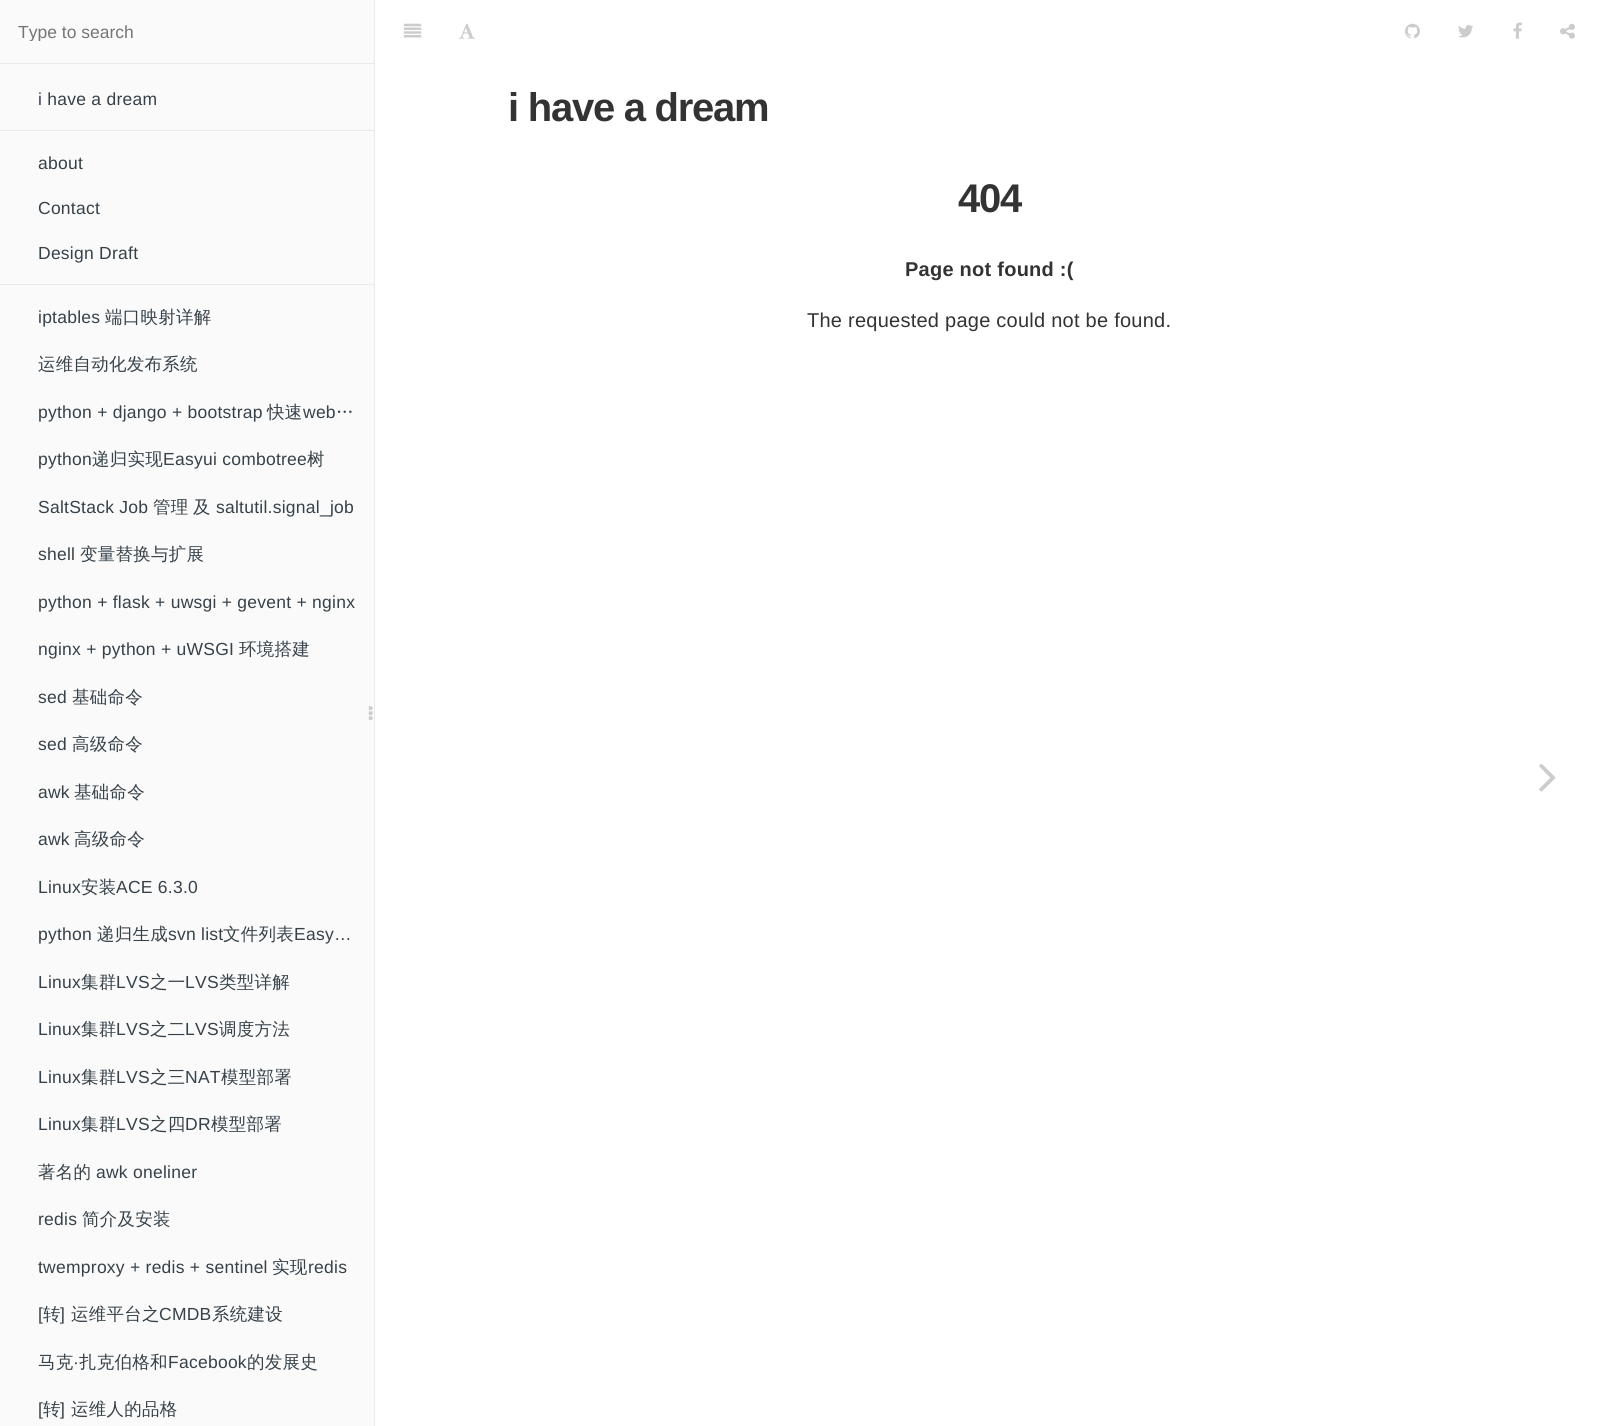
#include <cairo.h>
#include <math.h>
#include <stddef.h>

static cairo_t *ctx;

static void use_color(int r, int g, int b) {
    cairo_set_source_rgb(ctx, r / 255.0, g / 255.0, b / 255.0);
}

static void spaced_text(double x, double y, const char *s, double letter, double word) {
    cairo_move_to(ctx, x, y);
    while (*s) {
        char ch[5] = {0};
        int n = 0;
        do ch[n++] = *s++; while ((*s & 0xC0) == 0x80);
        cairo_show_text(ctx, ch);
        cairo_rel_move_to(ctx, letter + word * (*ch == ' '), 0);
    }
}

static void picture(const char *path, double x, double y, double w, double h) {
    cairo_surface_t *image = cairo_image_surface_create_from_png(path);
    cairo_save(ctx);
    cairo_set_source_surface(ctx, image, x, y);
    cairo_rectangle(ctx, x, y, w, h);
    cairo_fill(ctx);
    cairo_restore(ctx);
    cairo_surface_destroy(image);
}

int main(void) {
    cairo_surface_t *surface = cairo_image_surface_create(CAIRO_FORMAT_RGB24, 1603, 1426);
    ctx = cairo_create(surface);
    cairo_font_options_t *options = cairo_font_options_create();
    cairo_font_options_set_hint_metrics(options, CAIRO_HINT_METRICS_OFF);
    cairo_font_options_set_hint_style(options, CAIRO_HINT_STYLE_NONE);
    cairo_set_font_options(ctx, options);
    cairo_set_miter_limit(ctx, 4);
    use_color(255, 255, 255);
    cairo_paint(ctx);
    use_color(250, 250, 250);
    cairo_rectangle(ctx, 0, 0, 374, 1426);
    cairo_fill(ctx);
    use_color(233, 233, 233);
    cairo_rectangle(ctx, 374, 0, 1, 1426);
    cairo_fill(ctx);
    cairo_rectangle(ctx, 0, 63, 374, 1);
    cairo_fill(ctx);
    cairo_save(ctx);
    cairo_rectangle(ctx, 18, 21, 338, 20);
    cairo_clip(ctx);
    cairo_select_font_face(ctx, "Liberation Sans", CAIRO_FONT_SLANT_NORMAL, CAIRO_FONT_WEIGHT_NORMAL);
    cairo_set_font_size(ctx, 17.5);
    use_color(117, 117, 117);
    cairo_move_to(ctx, 18, 38);
    cairo_show_text(ctx, "Type to search");
    cairo_restore(ctx);
    cairo_select_font_face(ctx, "Liberation Sans", CAIRO_FONT_SLANT_NORMAL, CAIRO_FONT_WEIGHT_NORMAL);
    cairo_set_font_size(ctx, 17.5);
    use_color(54, 65, 73);
    spaced_text(38, 105, "i have a dream", 0.25, 0);
    use_color(233, 233, 233);
    cairo_rectangle(ctx, 0, 130, 374, 1);
    cairo_fill(ctx);
    use_color(54, 65, 73);
    spaced_text(38, 169, "about", 0.25, 0);
    spaced_text(38, 214, "Contact", 0.25, 0);
    spaced_text(38, 259, "Design Draft", 0.25, 0);
    use_color(233, 233, 233);
    cairo_rectangle(ctx, 0, 284, 374, 1);
    cairo_fill(ctx);
    use_color(54, 65, 73);
    spaced_text(38, 323, "iptables", 0.25, 0);
    cairo_select_font_face(ctx, "WenQuanYi Zen Hei Medium", CAIRO_FONT_SLANT_NORMAL, CAIRO_FONT_WEIGHT_NORMAL);
    spaced_text(105, 323, "端口映射详解", 0.25, 0);
    spaced_text(38, 370, "运维自动化发布系统", 0.25, 0);
    cairo_select_font_face(ctx, "Liberation Sans", CAIRO_FONT_SLANT_NORMAL, CAIRO_FONT_WEIGHT_NORMAL);
    spaced_text(38, 418, "python + django + bootstrap", 0.25, 0);
    cairo_select_font_face(ctx, "WenQuanYi Zen Hei Medium", CAIRO_FONT_SLANT_NORMAL, CAIRO_FONT_WEIGHT_NORMAL);
    spaced_text(267, 418, "快速", 0.25, 0);
    cairo_select_font_face(ctx, "Liberation Sans", CAIRO_FONT_SLANT_NORMAL, CAIRO_FONT_WEIGHT_NORMAL);
    spaced_text(303, 418, "web", 0.25, 0);
    cairo_select_font_face(ctx, "WenQuanYi Zen Hei Medium", CAIRO_FONT_SLANT_NORMAL, CAIRO_FONT_WEIGHT_NORMAL);
    spaced_text(336, 418, "…", 0.25, 0);
    cairo_select_font_face(ctx, "Liberation Sans", CAIRO_FONT_SLANT_NORMAL, CAIRO_FONT_WEIGHT_NORMAL);
    spaced_text(38, 465, "python", 0.25, 0);
    cairo_select_font_face(ctx, "WenQuanYi Zen Hei Medium", CAIRO_FONT_SLANT_NORMAL, CAIRO_FONT_WEIGHT_NORMAL);
    spaced_text(92, 465, "递归实现", 0.25, 0);
    cairo_select_font_face(ctx, "Liberation Sans", CAIRO_FONT_SLANT_NORMAL, CAIRO_FONT_WEIGHT_NORMAL);
    spaced_text(163, 465, "Easyui combotree", 0.25, 0);
    cairo_select_font_face(ctx, "WenQuanYi Zen Hei Medium", CAIRO_FONT_SLANT_NORMAL, CAIRO_FONT_WEIGHT_NORMAL);
    spaced_text(307, 465, "树", 0.25, 0);
    cairo_select_font_face(ctx, "Liberation Sans", CAIRO_FONT_SLANT_NORMAL, CAIRO_FONT_WEIGHT_NORMAL);
    spaced_text(38, 513, "SaltStack Job", 0.25, 0);
    cairo_select_font_face(ctx, "WenQuanYi Zen Hei Medium", CAIRO_FONT_SLANT_NORMAL, CAIRO_FONT_WEIGHT_NORMAL);
    spaced_text(153, 513, "管理", 0.25, 0);
    spaced_text(193, 513, "及", 0.25, 0);
    cairo_select_font_face(ctx, "Liberation Sans", CAIRO_FONT_SLANT_NORMAL, CAIRO_FONT_WEIGHT_NORMAL);
    spaced_text(216, 513, "saltutil.signal_job", 0.25, 0);
    spaced_text(38, 560, "shell", 0.25, 0);
    cairo_select_font_face(ctx, "WenQuanYi Zen Hei Medium", CAIRO_FONT_SLANT_NORMAL, CAIRO_FONT_WEIGHT_NORMAL);
    spaced_text(80, 560, "变量替换与扩展", 0.25, 0);
    cairo_select_font_face(ctx, "Liberation Sans", CAIRO_FONT_SLANT_NORMAL, CAIRO_FONT_WEIGHT_NORMAL);
    spaced_text(38, 608, "python + flask + uwsgi + gevent + nginx", 0.25, 0);
    spaced_text(38, 655, "nginx + python + uWSGI", 0.25, 0);
    cairo_select_font_face(ctx, "WenQuanYi Zen Hei Medium", CAIRO_FONT_SLANT_NORMAL, CAIRO_FONT_WEIGHT_NORMAL);
    spaced_text(239, 655, "环境搭建", 0.25, 0);
    cairo_select_font_face(ctx, "Liberation Sans", CAIRO_FONT_SLANT_NORMAL, CAIRO_FONT_WEIGHT_NORMAL);
    spaced_text(38, 703, "sed", 0.25, 0);
    cairo_select_font_face(ctx, "WenQuanYi Zen Hei Medium", CAIRO_FONT_SLANT_NORMAL, CAIRO_FONT_WEIGHT_NORMAL);
    spaced_text(72, 703, "基础命令", 0.25, 0);
    cairo_select_font_face(ctx, "Liberation Sans", CAIRO_FONT_SLANT_NORMAL, CAIRO_FONT_WEIGHT_NORMAL);
    spaced_text(38, 750, "sed", 0.25, 0);
    cairo_select_font_face(ctx, "WenQuanYi Zen Hei Medium", CAIRO_FONT_SLANT_NORMAL, CAIRO_FONT_WEIGHT_NORMAL);
    spaced_text(72, 750, "高级命令", 0.25, 0);
    cairo_select_font_face(ctx, "Liberation Sans", CAIRO_FONT_SLANT_NORMAL, CAIRO_FONT_WEIGHT_NORMAL);
    spaced_text(38, 798, "awk", 0.25, 0);
    cairo_select_font_face(ctx, "WenQuanYi Zen Hei Medium", CAIRO_FONT_SLANT_NORMAL, CAIRO_FONT_WEIGHT_NORMAL);
    spaced_text(74, 798, "基础命令", 0.25, 0);
    cairo_select_font_face(ctx, "Liberation Sans", CAIRO_FONT_SLANT_NORMAL, CAIRO_FONT_WEIGHT_NORMAL);
    spaced_text(38, 845, "awk", 0.25, 0);
    cairo_select_font_face(ctx, "WenQuanYi Zen Hei Medium", CAIRO_FONT_SLANT_NORMAL, CAIRO_FONT_WEIGHT_NORMAL);
    spaced_text(74, 845, "高级命令", 0.25, 0);
    cairo_select_font_face(ctx, "Liberation Sans", CAIRO_FONT_SLANT_NORMAL, CAIRO_FONT_WEIGHT_NORMAL);
    spaced_text(38, 893, "Linux", 0.25, 0);
    cairo_select_font_face(ctx, "WenQuanYi Zen Hei Medium", CAIRO_FONT_SLANT_NORMAL, CAIRO_FONT_WEIGHT_NORMAL);
    spaced_text(81, 893, "安装", 0.25, 0);
    cairo_select_font_face(ctx, "Liberation Sans", CAIRO_FONT_SLANT_NORMAL, CAIRO_FONT_WEIGHT_NORMAL);
    spaced_text(116, 893, "ACE 6.3.0", 0.25, 0);
    spaced_text(38, 940, "python", 0.25, 0);
    cairo_select_font_face(ctx, "WenQuanYi Zen Hei Medium", CAIRO_FONT_SLANT_NORMAL, CAIRO_FONT_WEIGHT_NORMAL);
    spaced_text(97, 940, "递归生成", 0.25, 0);
    cairo_select_font_face(ctx, "Liberation Sans", CAIRO_FONT_SLANT_NORMAL, CAIRO_FONT_WEIGHT_NORMAL);
    spaced_text(168, 940, "svn list", 0.25, 0);
    cairo_select_font_face(ctx, "WenQuanYi Zen Hei Medium", CAIRO_FONT_SLANT_NORMAL, CAIRO_FONT_WEIGHT_NORMAL);
    spaced_text(223, 940, "文件列表", 0.25, 0);
    cairo_select_font_face(ctx, "Liberation Sans", CAIRO_FONT_SLANT_NORMAL, CAIRO_FONT_WEIGHT_NORMAL);
    spaced_text(294, 940, "Easy…", 0.25, 0);
    spaced_text(38, 988, "Linux", 0.25, 0);
    cairo_select_font_face(ctx, "WenQuanYi Zen Hei Medium", CAIRO_FONT_SLANT_NORMAL, CAIRO_FONT_WEIGHT_NORMAL);
    spaced_text(81, 988, "集群", 0.25, 0);
    cairo_select_font_face(ctx, "Liberation Sans", CAIRO_FONT_SLANT_NORMAL, CAIRO_FONT_WEIGHT_NORMAL);
    spaced_text(116, 988, "LVS", 0.25, 0);
    cairo_select_font_face(ctx, "WenQuanYi Zen Hei Medium", CAIRO_FONT_SLANT_NORMAL, CAIRO_FONT_WEIGHT_NORMAL);
    spaced_text(150, 988, "之一", 0.25, 0);
    cairo_select_font_face(ctx, "Liberation Sans", CAIRO_FONT_SLANT_NORMAL, CAIRO_FONT_WEIGHT_NORMAL);
    spaced_text(185, 988, "LVS", 0.25, 0);
    cairo_select_font_face(ctx, "WenQuanYi Zen Hei Medium", CAIRO_FONT_SLANT_NORMAL, CAIRO_FONT_WEIGHT_NORMAL);
    spaced_text(219, 988, "类型详解", 0.25, 0);
    cairo_select_font_face(ctx, "Liberation Sans", CAIRO_FONT_SLANT_NORMAL, CAIRO_FONT_WEIGHT_NORMAL);
    spaced_text(38, 1035, "Linux", 0.25, 0);
    cairo_select_font_face(ctx, "WenQuanYi Zen Hei Medium", CAIRO_FONT_SLANT_NORMAL, CAIRO_FONT_WEIGHT_NORMAL);
    spaced_text(81, 1035, "集群", 0.25, 0);
    cairo_select_font_face(ctx, "Liberation Sans", CAIRO_FONT_SLANT_NORMAL, CAIRO_FONT_WEIGHT_NORMAL);
    spaced_text(116, 1035, "LVS", 0.25, 0);
    cairo_select_font_face(ctx, "WenQuanYi Zen Hei Medium", CAIRO_FONT_SLANT_NORMAL, CAIRO_FONT_WEIGHT_NORMAL);
    spaced_text(150, 1035, "之二", 0.25, 0);
    cairo_select_font_face(ctx, "Liberation Sans", CAIRO_FONT_SLANT_NORMAL, CAIRO_FONT_WEIGHT_NORMAL);
    spaced_text(185, 1035, "LVS", 0.25, 0);
    cairo_select_font_face(ctx, "WenQuanYi Zen Hei Medium", CAIRO_FONT_SLANT_NORMAL, CAIRO_FONT_WEIGHT_NORMAL);
    spaced_text(219, 1035, "调度方法", 0.25, 0);
    cairo_select_font_face(ctx, "Liberation Sans", CAIRO_FONT_SLANT_NORMAL, CAIRO_FONT_WEIGHT_NORMAL);
    spaced_text(38, 1083, "Linux", 0.25, 0);
    cairo_select_font_face(ctx, "WenQuanYi Zen Hei Medium", CAIRO_FONT_SLANT_NORMAL, CAIRO_FONT_WEIGHT_NORMAL);
    spaced_text(81, 1083, "集群", 0.25, 0);
    cairo_select_font_face(ctx, "Liberation Sans", CAIRO_FONT_SLANT_NORMAL, CAIRO_FONT_WEIGHT_NORMAL);
    spaced_text(116, 1083, "LVS", 0.25, 0);
    cairo_select_font_face(ctx, "WenQuanYi Zen Hei Medium", CAIRO_FONT_SLANT_NORMAL, CAIRO_FONT_WEIGHT_NORMAL);
    spaced_text(150, 1083, "之三", 0.25, 0);
    cairo_select_font_face(ctx, "Liberation Sans", CAIRO_FONT_SLANT_NORMAL, CAIRO_FONT_WEIGHT_NORMAL);
    spaced_text(185, 1083, "NAT", 0.25, 0);
    cairo_select_font_face(ctx, "WenQuanYi Zen Hei Medium", CAIRO_FONT_SLANT_NORMAL, CAIRO_FONT_WEIGHT_NORMAL);
    spaced_text(221, 1083, "模型部署", 0.25, 0);
    cairo_select_font_face(ctx, "Liberation Sans", CAIRO_FONT_SLANT_NORMAL, CAIRO_FONT_WEIGHT_NORMAL);
    spaced_text(38, 1130, "Linux", 0.25, 0);
    cairo_select_font_face(ctx, "WenQuanYi Zen Hei Medium", CAIRO_FONT_SLANT_NORMAL, CAIRO_FONT_WEIGHT_NORMAL);
    spaced_text(81, 1130, "集群", 0.25, 0);
    cairo_select_font_face(ctx, "Liberation Sans", CAIRO_FONT_SLANT_NORMAL, CAIRO_FONT_WEIGHT_NORMAL);
    spaced_text(116, 1130, "LVS", 0.25, 0);
    cairo_select_font_face(ctx, "WenQuanYi Zen Hei Medium", CAIRO_FONT_SLANT_NORMAL, CAIRO_FONT_WEIGHT_NORMAL);
    spaced_text(150, 1130, "之四", 0.25, 0);
    cairo_select_font_face(ctx, "Liberation Sans", CAIRO_FONT_SLANT_NORMAL, CAIRO_FONT_WEIGHT_NORMAL);
    spaced_text(185, 1130, "DR", 0.25, 0);
    cairo_select_font_face(ctx, "WenQuanYi Zen Hei Medium", CAIRO_FONT_SLANT_NORMAL, CAIRO_FONT_WEIGHT_NORMAL);
    spaced_text(211, 1130, "模型部署", 0.25, 0);
    spaced_text(38, 1178, "著名的", 0.25, 0);
    cairo_select_font_face(ctx, "Liberation Sans", CAIRO_FONT_SLANT_NORMAL, CAIRO_FONT_WEIGHT_NORMAL);
    spaced_text(96, 1178, "awk oneliner", 0.25, 0);
    spaced_text(38, 1225, "redis", 0.25, 0);
    cairo_select_font_face(ctx, "WenQuanYi Zen Hei Medium", CAIRO_FONT_SLANT_NORMAL, CAIRO_FONT_WEIGHT_NORMAL);
    spaced_text(82, 1225, "简介及安装", 0.25, 0);
    cairo_select_font_face(ctx, "Liberation Sans", CAIRO_FONT_SLANT_NORMAL, CAIRO_FONT_WEIGHT_NORMAL);
    spaced_text(38, 1273, "twemproxy + redis + sentinel", 0.25, 0);
    cairo_select_font_face(ctx, "WenQuanYi Zen Hei Medium", CAIRO_FONT_SLANT_NORMAL, CAIRO_FONT_WEIGHT_NORMAL);
    spaced_text(272, 1273, "实现", 0.25, 0);
    cairo_select_font_face(ctx, "Liberation Sans", CAIRO_FONT_SLANT_NORMAL, CAIRO_FONT_WEIGHT_NORMAL);
    spaced_text(308, 1273, "redis", 0.25, 0);
    spaced_text(38, 1320, "[", 0.25, 0);
    cairo_select_font_face(ctx, "WenQuanYi Zen Hei Medium", CAIRO_FONT_SLANT_NORMAL, CAIRO_FONT_WEIGHT_NORMAL);
    spaced_text(43, 1320, "转", 0.25, 0);
    cairo_select_font_face(ctx, "Liberation Sans", CAIRO_FONT_SLANT_NORMAL, CAIRO_FONT_WEIGHT_NORMAL);
    spaced_text(60, 1320, "]", 0.25, 0);
    cairo_select_font_face(ctx, "WenQuanYi Zen Hei Medium", CAIRO_FONT_SLANT_NORMAL, CAIRO_FONT_WEIGHT_NORMAL);
    spaced_text(71, 1320, "运维平台之", 0.25, 0);
    cairo_select_font_face(ctx, "Liberation Sans", CAIRO_FONT_SLANT_NORMAL, CAIRO_FONT_WEIGHT_NORMAL);
    spaced_text(159, 1320, "CMDB", 0.25, 0);
    cairo_select_font_face(ctx, "WenQuanYi Zen Hei Medium", CAIRO_FONT_SLANT_NORMAL, CAIRO_FONT_WEIGHT_NORMAL);
    spaced_text(212, 1320, "系统建设", 0.25, 0);
    spaced_text(38, 1368, "马克", 0.25, 0);
    cairo_select_font_face(ctx, "Liberation Sans", CAIRO_FONT_SLANT_NORMAL, CAIRO_FONT_WEIGHT_NORMAL);
    spaced_text(73, 1368, "·", 0.25, 0);
    cairo_select_font_face(ctx, "WenQuanYi Zen Hei Medium", CAIRO_FONT_SLANT_NORMAL, CAIRO_FONT_WEIGHT_NORMAL);
    spaced_text(79, 1368, "扎克伯格和", 0.25, 0);
    cairo_select_font_face(ctx, "Liberation Sans", CAIRO_FONT_SLANT_NORMAL, CAIRO_FONT_WEIGHT_NORMAL);
    spaced_text(168, 1368, "Facebook", 0.25, 0);
    cairo_select_font_face(ctx, "WenQuanYi Zen Hei Medium", CAIRO_FONT_SLANT_NORMAL, CAIRO_FONT_WEIGHT_NORMAL);
    spaced_text(247, 1368, "的发展史", 0.25, 0);
    cairo_select_font_face(ctx, "Liberation Sans", CAIRO_FONT_SLANT_NORMAL, CAIRO_FONT_WEIGHT_NORMAL);
    spaced_text(38, 1415, "[", 0.25, 0);
    cairo_select_font_face(ctx, "WenQuanYi Zen Hei Medium", CAIRO_FONT_SLANT_NORMAL, CAIRO_FONT_WEIGHT_NORMAL);
    spaced_text(43, 1415, "转", 0.25, 0);
    cairo_select_font_face(ctx, "Liberation Sans", CAIRO_FONT_SLANT_NORMAL, CAIRO_FONT_WEIGHT_NORMAL);
    spaced_text(60, 1415, "]", 0.25, 0);
    cairo_select_font_face(ctx, "WenQuanYi Zen Hei Medium", CAIRO_FONT_SLANT_NORMAL, CAIRO_FONT_WEIGHT_NORMAL);
    spaced_text(71, 1415, "运维人的品格", 0.25, 0);
    picture("img1.png", 368, 706, 5, 14);
    picture("img2.png", 403, 23, 19, 15);
    picture("img3.png", 458, 23, 17, 16);
    picture("img4.png", 1405, 23, 15, 16);
    picture("img5.png", 1458, 25, 15, 13);
    picture("img6.png", 1513, 22, 9, 17);
    picture("img7.png", 1560, 23, 15, 16);
    cairo_select_font_face(ctx, "Liberation Sans", CAIRO_FONT_SLANT_NORMAL, CAIRO_FONT_WEIGHT_BOLD);
    cairo_set_font_size(ctx, 40);
    use_color(51, 51, 51);
    spaced_text(508, 121, "i have a dream", -1.25, 0);
    spaced_text(958, 212, "404", -1.25, 0);
    cairo_set_font_size(ctx, 20);
    spaced_text(905, 276, "Page not found :(", 0.25, 0);
    cairo_select_font_face(ctx, "Liberation Sans", CAIRO_FONT_SLANT_NORMAL, CAIRO_FONT_WEIGHT_NORMAL);
    spaced_text(807, 327, "The requested page could not be found.", 0.25, 0);
    picture("img8.png", 1539, 763, 17, 29);
    cairo_surface_write_to_png(surface, "result.png");
    cairo_font_options_destroy(options);
    cairo_destroy(ctx);
    cairo_surface_destroy(surface);
    return 0;
}
